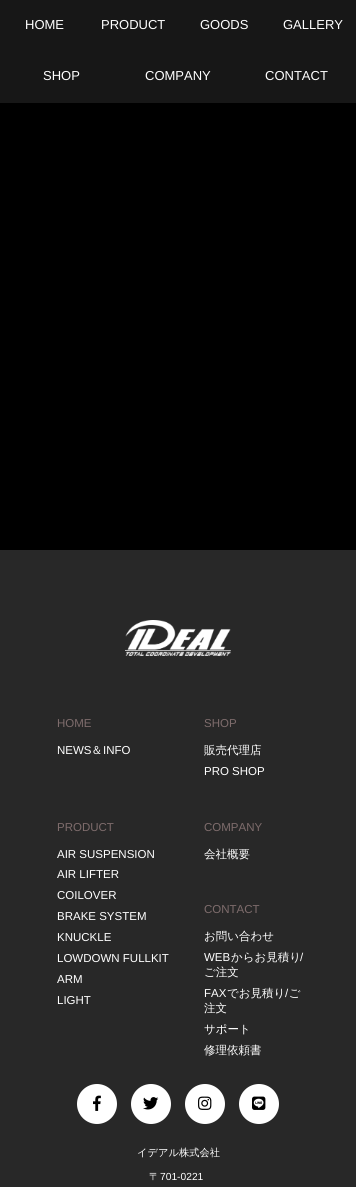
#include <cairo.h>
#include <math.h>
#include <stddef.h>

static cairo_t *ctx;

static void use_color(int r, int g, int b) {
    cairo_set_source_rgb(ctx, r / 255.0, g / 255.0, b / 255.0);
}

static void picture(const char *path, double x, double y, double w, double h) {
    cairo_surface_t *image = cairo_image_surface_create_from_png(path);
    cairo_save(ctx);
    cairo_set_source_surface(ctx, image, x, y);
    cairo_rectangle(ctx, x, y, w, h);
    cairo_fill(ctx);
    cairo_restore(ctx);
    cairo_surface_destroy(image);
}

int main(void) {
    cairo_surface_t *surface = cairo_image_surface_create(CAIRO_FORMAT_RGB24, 356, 1187);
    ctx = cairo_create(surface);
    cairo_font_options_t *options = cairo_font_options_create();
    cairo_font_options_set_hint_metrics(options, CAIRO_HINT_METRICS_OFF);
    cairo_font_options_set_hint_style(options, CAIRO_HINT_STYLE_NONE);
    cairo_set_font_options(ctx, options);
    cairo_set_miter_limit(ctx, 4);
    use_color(0, 0, 0);
    cairo_paint(ctx);
    use_color(23, 23, 23);
    cairo_rectangle(ctx, 0, 0, 356, 103);
    cairo_fill(ctx);
    cairo_select_font_face(ctx, "Liberation Sans", CAIRO_FONT_SLANT_NORMAL, CAIRO_FONT_WEIGHT_NORMAL);
    cairo_set_font_size(ctx, 13);
    use_color(255, 255, 255);
    cairo_move_to(ctx, 25, 29);
    cairo_show_text(ctx, "HOME");
    cairo_move_to(ctx, 101, 29);
    cairo_show_text(ctx, "PRODUCT");
    cairo_move_to(ctx, 200, 29);
    cairo_show_text(ctx, "GOODS");
    cairo_move_to(ctx, 283, 29);
    cairo_show_text(ctx, "GALLERY");
    cairo_move_to(ctx, 43, 80);
    cairo_show_text(ctx, "SHOP");
    cairo_move_to(ctx, 145, 80);
    cairo_show_text(ctx, "COMPANY");
    cairo_move_to(ctx, 265, 80);
    cairo_show_text(ctx, "CONTACT");
    use_color(40, 40, 40);
    cairo_rectangle(ctx, 0, 550, 356, 637);
    cairo_fill(ctx);
    picture("img1.png", 125, 620, 106, 36);
    cairo_set_font_size(ctx, 11.5);
    use_color(126, 108, 108);
    cairo_move_to(ctx, 57, 727);
    cairo_show_text(ctx, "HOME");
    use_color(255, 255, 255);
    cairo_move_to(ctx, 57, 754);
    cairo_show_text(ctx, "NEWS");
    cairo_select_font_face(ctx, "WenQuanYi Zen Hei Medium", CAIRO_FONT_SLANT_NORMAL, CAIRO_FONT_WEIGHT_NORMAL);
    cairo_move_to(ctx, 91, 754);
    cairo_show_text(ctx, "＆");
    cairo_select_font_face(ctx, "Liberation Sans", CAIRO_FONT_SLANT_NORMAL, CAIRO_FONT_WEIGHT_NORMAL);
    cairo_move_to(ctx, 103, 754);
    cairo_show_text(ctx, "INFO");
    use_color(126, 108, 108);
    cairo_move_to(ctx, 204, 727);
    cairo_show_text(ctx, "SHOP");
    cairo_select_font_face(ctx, "WenQuanYi Zen Hei Medium", CAIRO_FONT_SLANT_NORMAL, CAIRO_FONT_WEIGHT_NORMAL);
    use_color(255, 255, 255);
    cairo_move_to(ctx, 204, 754);
    cairo_show_text(ctx, "販売代理店");
    cairo_select_font_face(ctx, "Liberation Sans", CAIRO_FONT_SLANT_NORMAL, CAIRO_FONT_WEIGHT_NORMAL);
    cairo_move_to(ctx, 204, 775);
    cairo_show_text(ctx, "PRO SHOP");
    use_color(126, 108, 108);
    cairo_move_to(ctx, 57, 831);
    cairo_show_text(ctx, "PRODUCT");
    use_color(255, 255, 255);
    cairo_move_to(ctx, 57, 858);
    cairo_show_text(ctx, "AIR SUSPENSION");
    cairo_move_to(ctx, 57, 878);
    cairo_show_text(ctx, "AIR LIFTER");
    cairo_move_to(ctx, 57, 899);
    cairo_show_text(ctx, "COILOVER");
    cairo_move_to(ctx, 57, 920);
    cairo_show_text(ctx, "BRAKE SYSTEM");
    cairo_move_to(ctx, 57, 941);
    cairo_show_text(ctx, "KNUCKLE");
    cairo_move_to(ctx, 57, 962);
    cairo_show_text(ctx, "LOWDOWN FULLKIT");
    cairo_move_to(ctx, 57, 983);
    cairo_show_text(ctx, "ARM");
    cairo_move_to(ctx, 57, 1004);
    cairo_show_text(ctx, "LIGHT");
    use_color(126, 108, 108);
    cairo_move_to(ctx, 204, 831);
    cairo_show_text(ctx, "COMPANY");
    cairo_select_font_face(ctx, "WenQuanYi Zen Hei Medium", CAIRO_FONT_SLANT_NORMAL, CAIRO_FONT_WEIGHT_NORMAL);
    use_color(255, 255, 255);
    cairo_move_to(ctx, 204, 858);
    cairo_show_text(ctx, "会社概要");
    cairo_select_font_face(ctx, "Liberation Sans", CAIRO_FONT_SLANT_NORMAL, CAIRO_FONT_WEIGHT_NORMAL);
    use_color(126, 108, 108);
    cairo_move_to(ctx, 204, 913);
    cairo_show_text(ctx, "CONTACT");
    cairo_select_font_face(ctx, "WenQuanYi Zen Hei Medium", CAIRO_FONT_SLANT_NORMAL, CAIRO_FONT_WEIGHT_NORMAL);
    use_color(255, 255, 255);
    cairo_move_to(ctx, 204, 940);
    cairo_show_text(ctx, "お問い合わせ");
    cairo_select_font_face(ctx, "Liberation Sans", CAIRO_FONT_SLANT_NORMAL, CAIRO_FONT_WEIGHT_NORMAL);
    cairo_move_to(ctx, 204, 961);
    cairo_show_text(ctx, "WEB");
    cairo_select_font_face(ctx, "WenQuanYi Zen Hei Medium", CAIRO_FONT_SLANT_NORMAL, CAIRO_FONT_WEIGHT_NORMAL);
    cairo_move_to(ctx, 231, 961);
    cairo_show_text(ctx, "からお見積り");
    cairo_select_font_face(ctx, "Liberation Sans", CAIRO_FONT_SLANT_NORMAL, CAIRO_FONT_WEIGHT_NORMAL);
    cairo_move_to(ctx, 300, 961);
    cairo_show_text(ctx, "/");
    cairo_select_font_face(ctx, "WenQuanYi Zen Hei Medium", CAIRO_FONT_SLANT_NORMAL, CAIRO_FONT_WEIGHT_NORMAL);
    cairo_move_to(ctx, 204, 976);
    cairo_show_text(ctx, "ご注文");
    cairo_move_to(ctx, 227, 997);
    cairo_show_text(ctx, "でお見積り ご");
    cairo_select_font_face(ctx, "Liberation Sans", CAIRO_FONT_SLANT_NORMAL, CAIRO_FONT_WEIGHT_NORMAL);
    cairo_move_to(ctx, 204, 997);
    cairo_show_text(ctx, "FAX");
    cairo_move_to(ctx, 285, 997);
    cairo_show_text(ctx, "/");
    cairo_select_font_face(ctx, "WenQuanYi Zen Hei Medium", CAIRO_FONT_SLANT_NORMAL, CAIRO_FONT_WEIGHT_NORMAL);
    cairo_move_to(ctx, 204, 1012);
    cairo_show_text(ctx, "注文");
    cairo_move_to(ctx, 204, 1033);
    cairo_show_text(ctx, "サポート");
    cairo_move_to(ctx, 204, 1054);
    cairo_show_text(ctx, "修理依頼書");
    cairo_new_path(ctx);
    cairo_arc(ctx, 97, 1104, 20, 0, 2 * M_PI);
    cairo_fill(ctx);
    picture("img2.png", 93, 1095, 8, 16);
    cairo_arc(ctx, 151, 1104, 20, 0, 2 * M_PI);
    cairo_fill(ctx);
    picture("img3.png", 143, 1097, 16, 13);
    cairo_arc(ctx, 205, 1104, 20, 0, 2 * M_PI);
    cairo_fill(ctx);
    picture("img4.png", 198, 1096, 14, 14);
    cairo_arc(ctx, 259, 1104, 20, 0, 2 * M_PI);
    cairo_fill(ctx);
    picture("img5.png", 252, 1096, 14, 14);
    cairo_set_font_size(ctx, 10.25);
    cairo_move_to(ctx, 137, 1156);
    cairo_show_text(ctx, "イデアル株式会社");
    cairo_move_to(ctx, 149, 1180);
    cairo_show_text(ctx, "〒");
    cairo_select_font_face(ctx, "Liberation Sans", CAIRO_FONT_SLANT_NORMAL, CAIRO_FONT_WEIGHT_NORMAL);
    cairo_move_to(ctx, 160, 1180);
    cairo_show_text(ctx, "701-0221");
    cairo_surface_write_to_png(surface, "result.png");
    cairo_font_options_destroy(options);
    cairo_destroy(ctx);
    cairo_surface_destroy(surface);
    return 0;
}
